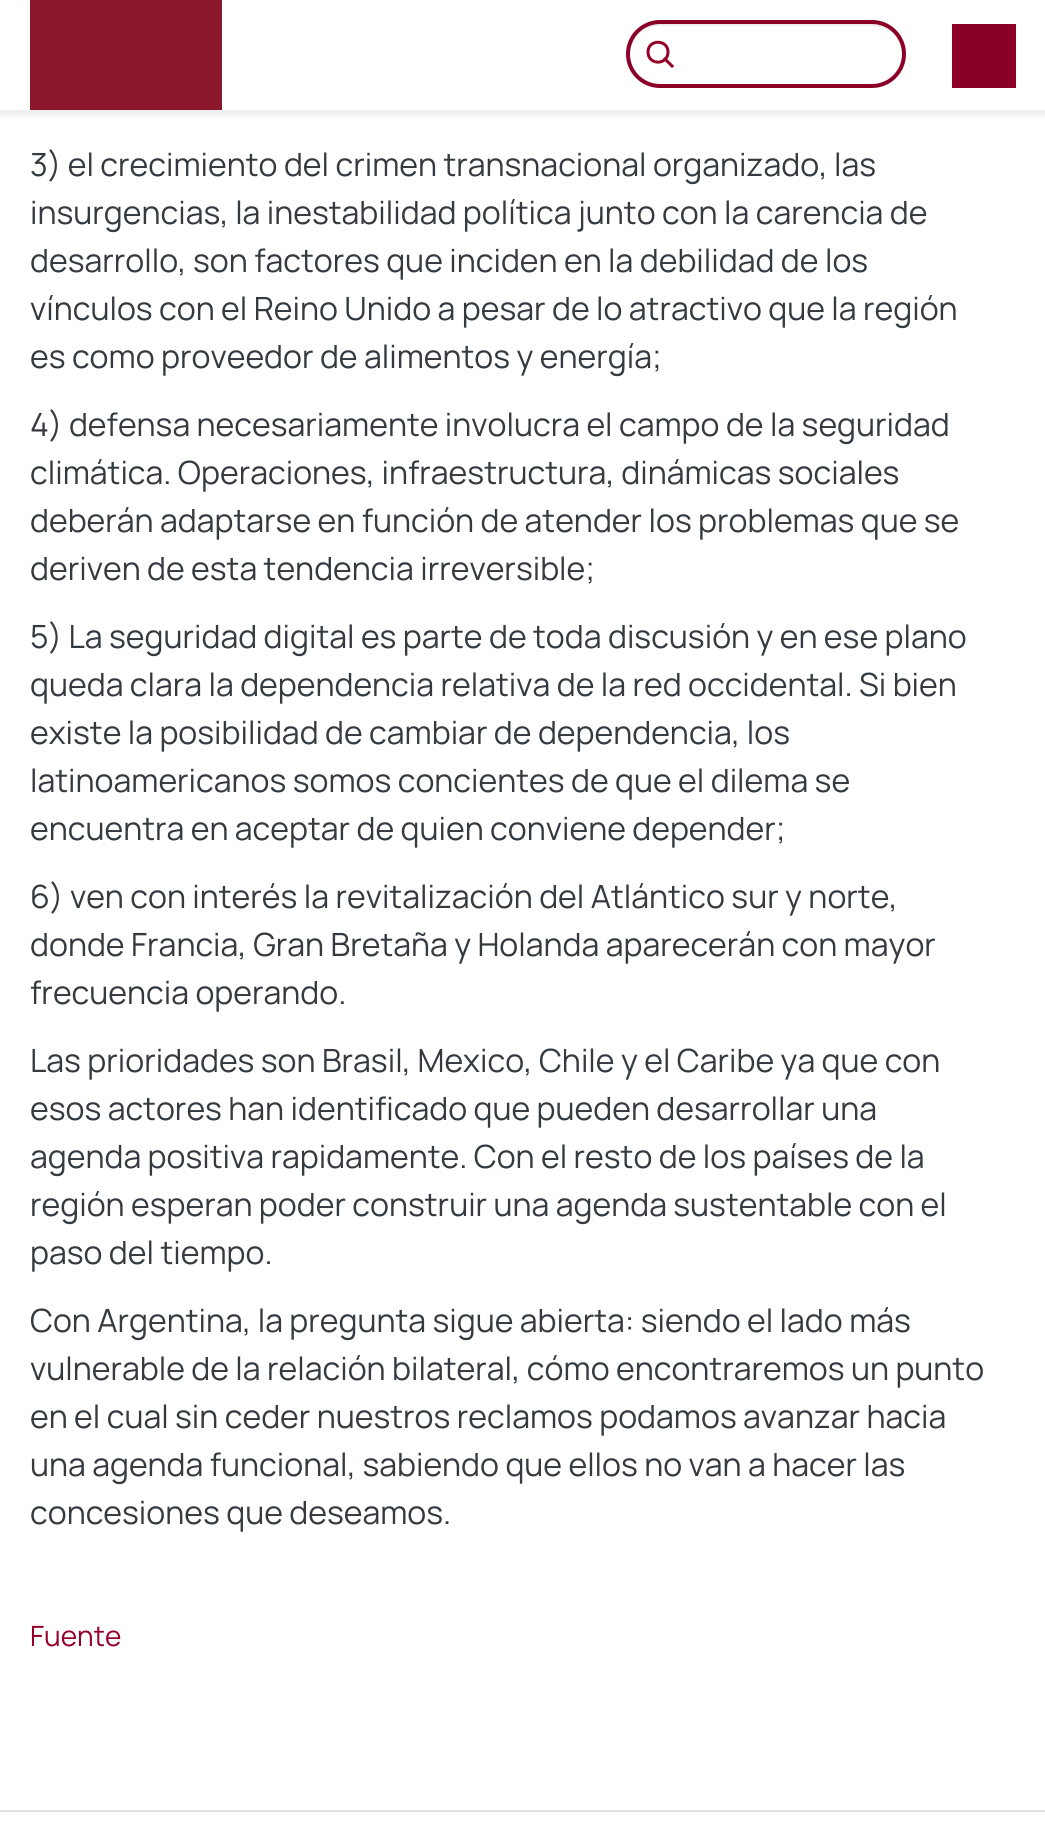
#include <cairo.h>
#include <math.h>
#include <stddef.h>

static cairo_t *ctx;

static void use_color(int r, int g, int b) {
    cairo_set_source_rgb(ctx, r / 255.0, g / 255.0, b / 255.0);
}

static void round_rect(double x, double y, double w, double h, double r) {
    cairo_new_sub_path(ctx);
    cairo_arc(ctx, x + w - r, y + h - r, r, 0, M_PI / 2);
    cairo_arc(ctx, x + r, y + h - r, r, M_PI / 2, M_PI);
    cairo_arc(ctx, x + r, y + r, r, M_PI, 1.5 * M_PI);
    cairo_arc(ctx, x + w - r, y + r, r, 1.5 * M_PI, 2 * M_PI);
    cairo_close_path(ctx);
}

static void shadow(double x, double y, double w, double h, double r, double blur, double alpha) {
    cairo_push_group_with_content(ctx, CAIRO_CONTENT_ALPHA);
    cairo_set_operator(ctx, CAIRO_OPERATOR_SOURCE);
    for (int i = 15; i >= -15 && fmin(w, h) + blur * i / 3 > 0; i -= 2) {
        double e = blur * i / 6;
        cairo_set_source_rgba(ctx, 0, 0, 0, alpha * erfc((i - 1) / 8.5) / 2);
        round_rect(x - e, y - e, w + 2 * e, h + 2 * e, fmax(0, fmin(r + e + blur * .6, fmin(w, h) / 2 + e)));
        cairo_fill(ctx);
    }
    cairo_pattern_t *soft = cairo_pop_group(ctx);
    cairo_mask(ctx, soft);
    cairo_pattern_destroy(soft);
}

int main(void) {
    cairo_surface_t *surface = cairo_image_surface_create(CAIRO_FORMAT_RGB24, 1045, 1828);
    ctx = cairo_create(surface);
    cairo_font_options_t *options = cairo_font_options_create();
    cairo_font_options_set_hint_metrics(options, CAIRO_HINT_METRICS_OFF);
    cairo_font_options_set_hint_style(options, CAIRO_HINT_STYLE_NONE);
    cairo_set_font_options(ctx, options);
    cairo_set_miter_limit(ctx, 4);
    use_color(255, 255, 255);
    cairo_paint(ctx);
    use_color(239, 239, 239);
    shadow(0, 4, 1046, 112, 0, 2, 1);
    use_color(255, 255, 255);
    cairo_rectangle(ctx, 0, 2, 1045, 108);
    cairo_fill(ctx);
    use_color(239, 239, 239);
    cairo_rectangle(ctx, 0, 110, 1045, 2);
    cairo_fill(ctx);
    use_color(138, 23, 42);
    cairo_rectangle(ctx, 30, 0, 192, 110);
    cairo_fill(ctx);
    use_color(236, 236, 236);
    cairo_new_path(ctx);
    cairo_move_to(ctx, 660, 26);
    cairo_line_to(ctx, 872, 26);
    cairo_curve_to(ctx, 889, 26, 901, 38, 902, 55);
    cairo_line_to(ctx, 902, 54);
    cairo_curve_to(ctx, 902, 37, 889, 24, 872, 24);
    cairo_line_to(ctx, 660, 24);
    cairo_curve_to(ctx, 643, 24, 630, 37, 630, 54);
    cairo_line_to(ctx, 630, 55);
    cairo_curve_to(ctx, 631, 38, 643, 26, 660, 26);
    cairo_close_path(ctx);
    cairo_fill(ctx);
    round_rect(628, 22, 276, 64, 32);
    use_color(138, 0, 39);
    cairo_set_line_width(ctx, 4);
    cairo_stroke(ctx);
    cairo_new_path(ctx);
    cairo_move_to(ctx, 672, 66);
    cairo_line_to(ctx, 665, 59);
    cairo_move_to(ctx, 668, 52);
    cairo_curve_to(ctx, 668, 65.5, 648, 65.5, 648, 52);
    cairo_curve_to(ctx, 648, 39, 668, 39, 668, 52);
    cairo_close_path(ctx);
    use_color(148, 0, 40);
    cairo_set_line_width(ctx, 3);
    cairo_set_line_cap(ctx, CAIRO_LINE_CAP_SQUARE);
    cairo_stroke(ctx);
    use_color(138, 0, 39);
    cairo_rectangle(ctx, 952, 24, 64, 64);
    cairo_fill(ctx);
    cairo_select_font_face(ctx, "Manrope", CAIRO_FONT_SLANT_NORMAL, CAIRO_FONT_WEIGHT_NORMAL);
    cairo_set_font_size(ctx, 32);
    use_color(52, 58, 64);
    cairo_move_to(ctx, 30, 176);
    cairo_show_text(ctx, "3) el crecimiento del crimen transnacional organizado, las");
    cairo_move_to(ctx, 30, 224);
    cairo_show_text(ctx, "insurgencias, la inestabilidad política junto con la carencia de");
    cairo_move_to(ctx, 30, 272);
    cairo_show_text(ctx, "desarrollo, son factores que inciden en la debilidad de los");
    cairo_move_to(ctx, 30, 320);
    cairo_show_text(ctx, "vínculos con el Reino Unido a pesar de lo atractivo que la región");
    cairo_move_to(ctx, 30, 368);
    cairo_show_text(ctx, "es como proveedor de alimentos y energía;");
    cairo_move_to(ctx, 30, 436);
    cairo_show_text(ctx, "4) defensa necesariamente involucra el campo de la seguridad");
    cairo_move_to(ctx, 30, 484);
    cairo_show_text(ctx, "climática. Operaciones, infraestructura, dinámicas sociales");
    cairo_move_to(ctx, 30, 532);
    cairo_show_text(ctx, "deberán adaptarse en función de atender los problemas que se");
    cairo_move_to(ctx, 30, 580);
    cairo_show_text(ctx, "deriven de esta tendencia irreversible;");
    cairo_move_to(ctx, 30, 648);
    cairo_show_text(ctx, "5) La seguridad digital es parte de toda discusión y en ese plano");
    cairo_move_to(ctx, 30, 696);
    cairo_show_text(ctx, "queda clara la dependencia relativa de la red occidental. Si bien");
    cairo_move_to(ctx, 30, 744);
    cairo_show_text(ctx, "existe la posibilidad de cambiar de dependencia, los");
    cairo_move_to(ctx, 30, 792);
    cairo_show_text(ctx, "latinoamericanos somos concientes de que el dilema se");
    cairo_move_to(ctx, 30, 840);
    cairo_show_text(ctx, "encuentra en aceptar de quien conviene depender;");
    cairo_move_to(ctx, 30, 908);
    cairo_show_text(ctx, "6) ven con interés la revitalización del Atlántico sur y norte,");
    cairo_move_to(ctx, 30, 956);
    cairo_show_text(ctx, "donde Francia, Gran Bretaña y Holanda aparecerán con mayor");
    cairo_move_to(ctx, 30, 1004);
    cairo_show_text(ctx, "frecuencia operando.");
    cairo_move_to(ctx, 30, 1072);
    cairo_show_text(ctx, "Las prioridades son Brasil, Mexico, Chile y el Caribe ya que con");
    cairo_move_to(ctx, 30, 1120);
    cairo_show_text(ctx, "esos actores han identificado que pueden desarrollar una");
    cairo_move_to(ctx, 30, 1168);
    cairo_show_text(ctx, "agenda positiva rapidamente. Con el resto de los países de la");
    cairo_move_to(ctx, 30, 1216);
    cairo_show_text(ctx, "región esperan poder construir una agenda sustentable con el");
    cairo_move_to(ctx, 30, 1264);
    cairo_show_text(ctx, "paso del tiempo.");
    cairo_move_to(ctx, 30, 1332);
    cairo_show_text(ctx, "Con Argentina, la pregunta sigue abierta: siendo el lado más");
    cairo_move_to(ctx, 30, 1380);
    cairo_show_text(ctx, "vulnerable de la relación bilateral, cómo encontraremos un punto");
    cairo_move_to(ctx, 30, 1428);
    cairo_show_text(ctx, "en el cual sin ceder nuestros reclamos podamos avanzar hacia");
    cairo_move_to(ctx, 30, 1476);
    cairo_show_text(ctx, "una agenda funcional, sabiendo que ellos no van a hacer las");
    cairo_move_to(ctx, 30, 1524);
    cairo_show_text(ctx, "concesiones que deseamos.");
    cairo_set_font_size(ctx, 28);
    use_color(148, 0, 40);
    cairo_move_to(ctx, 30, 1646);
    cairo_show_text(ctx, "Fuente");
    use_color(222, 226, 230);
    cairo_rectangle(ctx, 0, 1810, 1045, 2);
    cairo_fill(ctx);
    cairo_surface_write_to_png(surface, "result.png");
    cairo_font_options_destroy(options);
    cairo_destroy(ctx);
    cairo_surface_destroy(surface);
    return 0;
}
